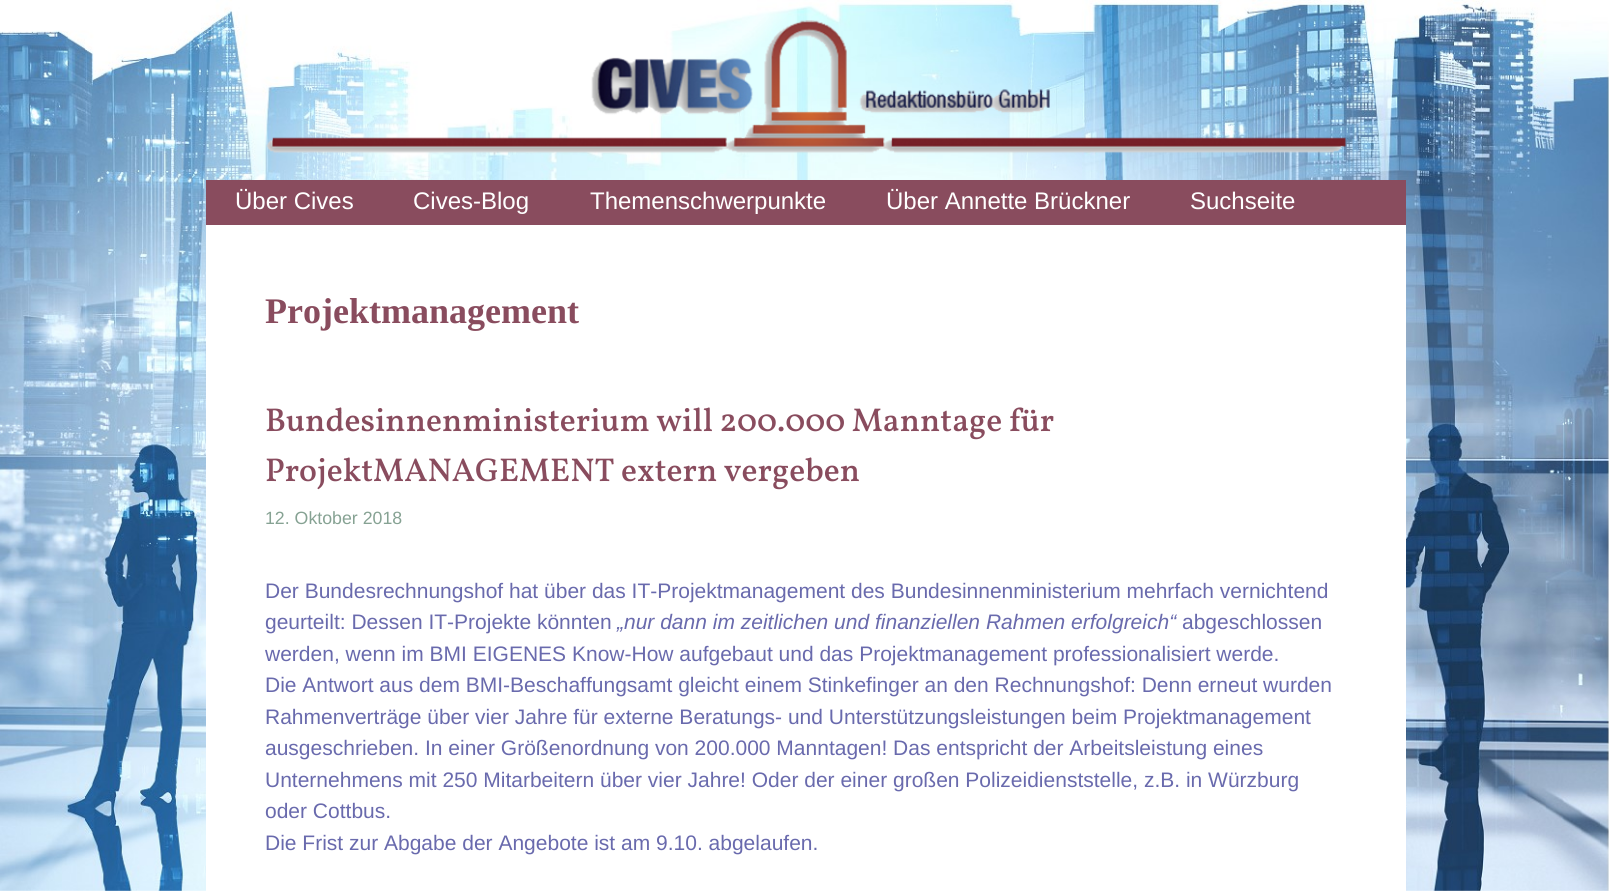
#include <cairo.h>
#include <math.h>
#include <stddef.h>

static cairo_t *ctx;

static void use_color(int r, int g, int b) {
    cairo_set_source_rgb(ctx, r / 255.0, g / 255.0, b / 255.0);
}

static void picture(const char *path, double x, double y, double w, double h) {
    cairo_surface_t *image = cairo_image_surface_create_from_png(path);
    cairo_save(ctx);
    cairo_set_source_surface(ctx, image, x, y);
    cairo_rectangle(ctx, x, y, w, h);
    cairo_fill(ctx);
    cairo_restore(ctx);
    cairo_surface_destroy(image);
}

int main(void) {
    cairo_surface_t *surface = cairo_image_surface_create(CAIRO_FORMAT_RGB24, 1609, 891);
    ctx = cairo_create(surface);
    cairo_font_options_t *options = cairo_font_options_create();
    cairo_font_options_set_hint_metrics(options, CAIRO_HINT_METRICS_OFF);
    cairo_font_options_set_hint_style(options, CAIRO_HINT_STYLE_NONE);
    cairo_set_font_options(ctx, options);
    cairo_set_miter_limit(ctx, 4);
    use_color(255, 255, 255);
    cairo_paint(ctx);
    picture("img1.png", 0, 0, 1609, 891);
    picture("img2.png", 266, 20, 1080, 134);
    use_color(137, 76, 94);
    cairo_rectangle(ctx, 206, 180, 1200, 45);
    cairo_fill(ctx);
    cairo_select_font_face(ctx, "Liberation Sans", CAIRO_FONT_SLANT_NORMAL, CAIRO_FONT_WEIGHT_NORMAL);
    cairo_set_font_size(ctx, 24);
    use_color(255, 255, 255);
    cairo_move_to(ctx, 235, 209);
    cairo_show_text(ctx, "Über Cives");
    cairo_move_to(ctx, 413, 209);
    cairo_show_text(ctx, "Cives-Blog");
    cairo_move_to(ctx, 590, 209);
    cairo_show_text(ctx, "Themenschwerpunkte");
    cairo_move_to(ctx, 886, 209);
    cairo_show_text(ctx, "Über Annette Brückner");
    cairo_move_to(ctx, 1190, 209);
    cairo_show_text(ctx, "Suchseite");
    cairo_rectangle(ctx, 206, 225, 1200, 666);
    cairo_fill(ctx);
    cairo_select_font_face(ctx, "Liberation Serif", CAIRO_FONT_SLANT_NORMAL, CAIRO_FONT_WEIGHT_BOLD);
    cairo_set_font_size(ctx, 36);
    use_color(137, 76, 94);
    cairo_move_to(ctx, 265, 323);
    cairo_show_text(ctx, "Projektmanagement");
    cairo_select_font_face(ctx, "Vollkorn Medium", CAIRO_FONT_SLANT_NORMAL, CAIRO_FONT_WEIGHT_NORMAL);
    cairo_set_font_size(ctx, 33);
    cairo_move_to(ctx, 265, 431);
    cairo_show_text(ctx, "Bundesinnenministerium will 200.000 Manntage für");
    cairo_move_to(ctx, 265, 481);
    cairo_show_text(ctx, "ProjektMANAGEMENT extern vergeben");
    cairo_select_font_face(ctx, "Liberation Sans", CAIRO_FONT_SLANT_NORMAL, CAIRO_FONT_WEIGHT_NORMAL);
    cairo_set_font_size(ctx, 17.75);
    use_color(134, 162, 147);
    cairo_move_to(ctx, 265, 524);
    cairo_show_text(ctx, "12. Oktober 2018");
    cairo_set_font_size(ctx, 21);
    use_color(105, 106, 173);
    cairo_move_to(ctx, 265, 598);
    cairo_show_text(ctx, "Der Bundesrechnungshof hat über das IT-Projektmanagement des Bundesinnenministerium mehrfach vernichtend");
    cairo_move_to(ctx, 265, 629);
    cairo_show_text(ctx, "geurteilt: Dessen IT-Projekte könnten");
    cairo_select_font_face(ctx, "Liberation Sans", CAIRO_FONT_SLANT_ITALIC, CAIRO_FONT_WEIGHT_NORMAL);
    cairo_move_to(ctx, 617, 629);
    cairo_show_text(ctx, "„nur dann im zeitlichen und finanziellen Rahmen erfolgreich“");
    cairo_select_font_face(ctx, "Liberation Sans", CAIRO_FONT_SLANT_NORMAL, CAIRO_FONT_WEIGHT_NORMAL);
    cairo_move_to(ctx, 1182, 629);
    cairo_show_text(ctx, "abgeschlossen");
    cairo_move_to(ctx, 265, 661);
    cairo_show_text(ctx, "werden, wenn im BMI EIGENES Know-How aufgebaut und das Projektmanagement professionalisiert werde.");
    cairo_move_to(ctx, 265, 692);
    cairo_show_text(ctx, "Die Antwort aus dem BMI-Beschaffungsamt gleicht einem Stinkefinger an den Rechnungshof: Denn erneut wurden");
    cairo_move_to(ctx, 265, 724);
    cairo_show_text(ctx, "Rahmenverträge über vier Jahre für externe Beratungs- und Unterstützungsleistungen beim Projektmanagement");
    cairo_move_to(ctx, 265, 755);
    cairo_show_text(ctx, "ausgeschrieben. In einer Größenordnung von 200.000 Manntagen! Das entspricht der Arbeitsleistung eines");
    cairo_move_to(ctx, 265, 787);
    cairo_show_text(ctx, "Unternehmens mit 250 Mitarbeitern über vier Jahre! Oder der einer großen Polizeidienststelle, z.B. in Würzburg");
    cairo_move_to(ctx, 265, 818);
    cairo_show_text(ctx, "oder Cottbus.");
    cairo_move_to(ctx, 265, 850);
    cairo_show_text(ctx, "Die Frist zur Abgabe der Angebote ist am 9.10. abgelaufen.");
    cairo_surface_write_to_png(surface, "result.png");
    cairo_font_options_destroy(options);
    cairo_destroy(ctx);
    cairo_surface_destroy(surface);
    return 0;
}
